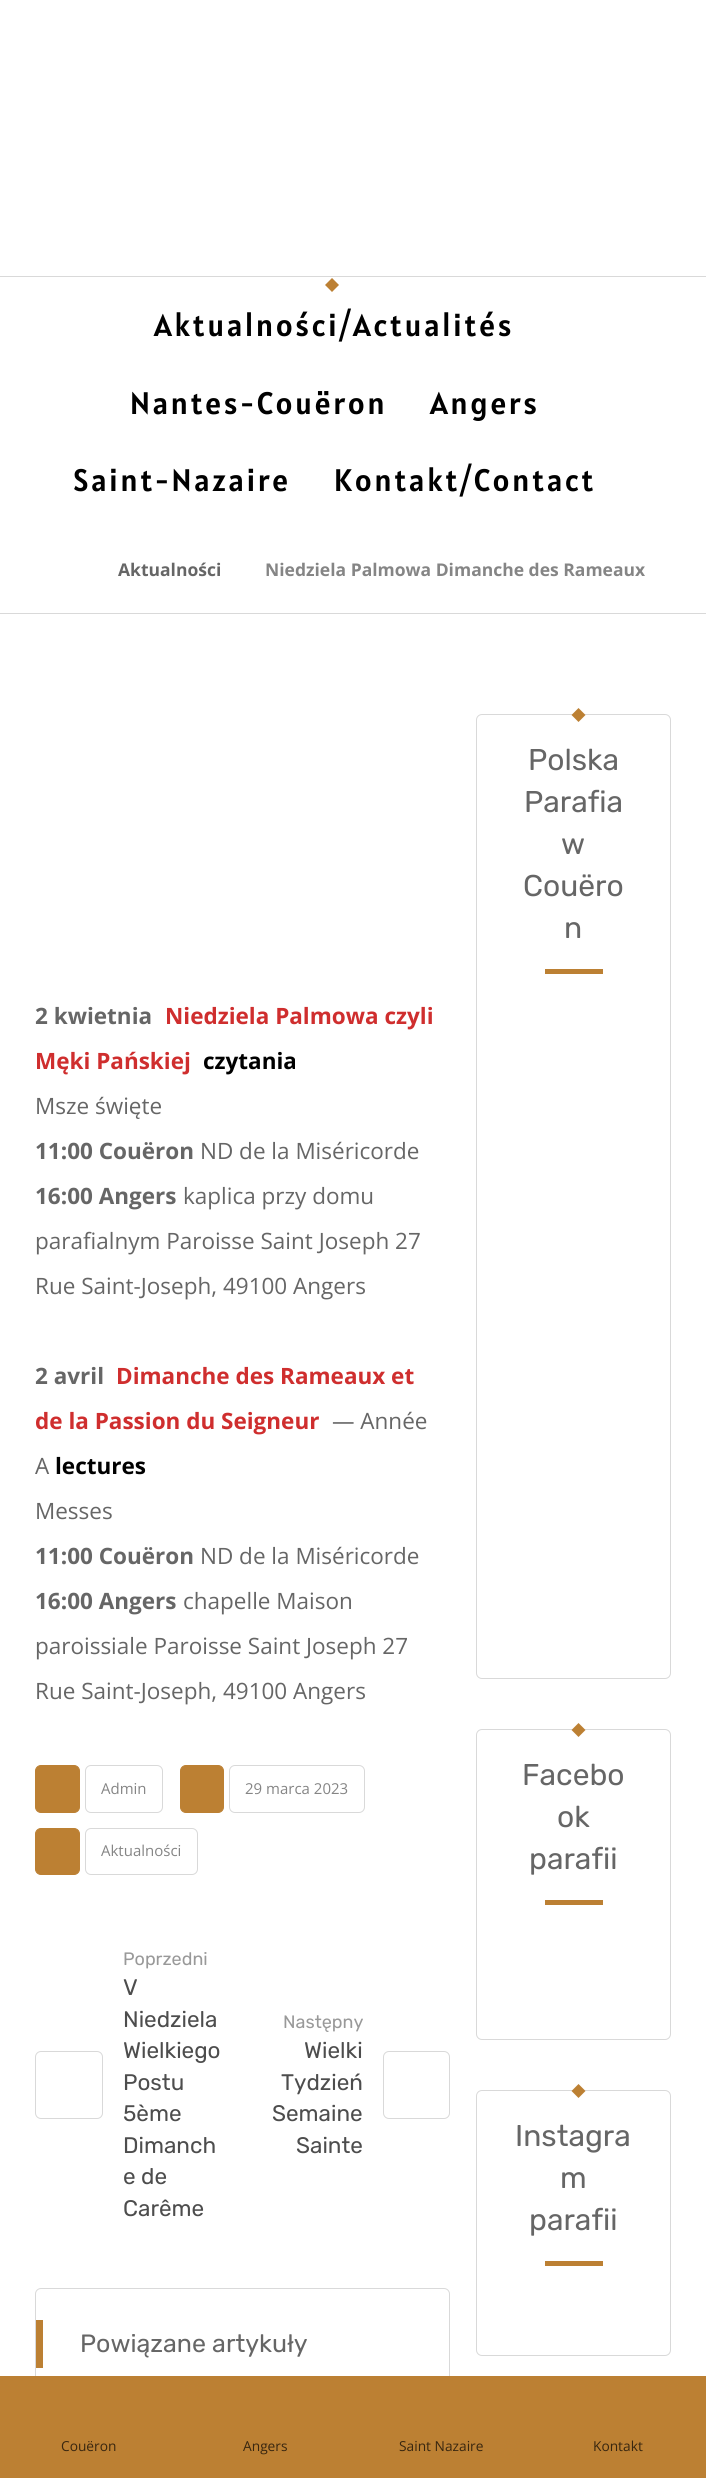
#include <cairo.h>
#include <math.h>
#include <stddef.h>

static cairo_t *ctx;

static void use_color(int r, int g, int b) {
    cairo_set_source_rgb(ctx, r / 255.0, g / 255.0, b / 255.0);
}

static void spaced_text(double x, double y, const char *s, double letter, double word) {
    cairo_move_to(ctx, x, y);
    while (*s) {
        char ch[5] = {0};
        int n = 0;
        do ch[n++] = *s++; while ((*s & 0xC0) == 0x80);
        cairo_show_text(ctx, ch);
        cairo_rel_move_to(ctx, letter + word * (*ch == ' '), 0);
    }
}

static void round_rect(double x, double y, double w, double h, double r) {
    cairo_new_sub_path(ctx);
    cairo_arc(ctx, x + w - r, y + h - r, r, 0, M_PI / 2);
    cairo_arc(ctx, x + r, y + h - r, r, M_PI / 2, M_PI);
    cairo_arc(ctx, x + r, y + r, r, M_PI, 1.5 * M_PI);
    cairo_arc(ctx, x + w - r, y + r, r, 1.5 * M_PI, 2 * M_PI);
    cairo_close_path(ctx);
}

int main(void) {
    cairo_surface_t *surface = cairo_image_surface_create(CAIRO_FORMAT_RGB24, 706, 2478);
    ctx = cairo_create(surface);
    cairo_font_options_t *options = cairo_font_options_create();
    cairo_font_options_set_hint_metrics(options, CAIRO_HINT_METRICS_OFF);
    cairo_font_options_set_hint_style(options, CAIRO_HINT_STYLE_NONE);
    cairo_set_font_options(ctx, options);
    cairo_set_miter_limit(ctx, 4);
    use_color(255, 255, 255);
    cairo_paint(ctx);
    use_color(217, 217, 217);
    cairo_rectangle(ctx, 0, 276, 706, 1);
    cairo_fill(ctx);
    use_color(188, 128, 51);
    cairo_new_path(ctx);
    cairo_move_to(ctx, 332, 278);
    cairo_line_to(ctx, 339, 285);
    cairo_line_to(ctx, 332, 292);
    cairo_line_to(ctx, 325, 285);
    cairo_close_path(ctx);
    cairo_fill(ctx);
    cairo_select_font_face(ctx, "Alatsi", CAIRO_FONT_SLANT_NORMAL, CAIRO_FONT_WEIGHT_NORMAL);
    cairo_set_font_size(ctx, 31.25);
    use_color(0, 0, 0);
    spaced_text(154, 336, "Aktualności/Actualités", 2.5, 0);
    spaced_text(130, 414, "Nantes-Couëron", 2.5, 0);
    spaced_text(430, 414, "Angers", 2.5, 0);
    spaced_text(73, 491, "Saint-Nazaire", 2.5, 0);
    spaced_text(334, 491, "Kontakt/Contact", 2.5, 0);
    use_color(217, 217, 217);
    cairo_rectangle(ctx, 0, 613, 706, 1);
    cairo_fill(ctx);
    cairo_select_font_face(ctx, "Open Sans", CAIRO_FONT_SLANT_NORMAL, CAIRO_FONT_WEIGHT_BOLD);
    cairo_set_font_size(ctx, 17.5);
    use_color(102, 102, 102);
    cairo_move_to(ctx, 118, 576);
    cairo_show_text(ctx, "Aktualności");
    use_color(133, 133, 133);
    cairo_move_to(ctx, 265, 576);
    cairo_show_text(ctx, "Niedziela Palmowa Dimanche des Rameaux");
    cairo_set_font_size(ctx, 22.5);
    use_color(102, 102, 102);
    cairo_move_to(ctx, 35, 1024);
    cairo_show_text(ctx, "2 kwietnia");
    use_color(207, 46, 46);
    cairo_move_to(ctx, 165, 1024);
    cairo_show_text(ctx, "Niedziela Palmowa czyli");
    cairo_move_to(ctx, 35, 1069);
    cairo_show_text(ctx, "Męki Pańskiej");
    use_color(0, 0, 0);
    cairo_move_to(ctx, 203, 1069);
    cairo_show_text(ctx, "czytania");
    cairo_select_font_face(ctx, "Open Sans", CAIRO_FONT_SLANT_NORMAL, CAIRO_FONT_WEIGHT_NORMAL);
    use_color(102, 102, 102);
    cairo_move_to(ctx, 35, 1114);
    cairo_show_text(ctx, "Msze święte");
    cairo_select_font_face(ctx, "Open Sans", CAIRO_FONT_SLANT_NORMAL, CAIRO_FONT_WEIGHT_BOLD);
    cairo_move_to(ctx, 35, 1159);
    cairo_show_text(ctx, "11:00 Couëron");
    cairo_select_font_face(ctx, "Open Sans", CAIRO_FONT_SLANT_NORMAL, CAIRO_FONT_WEIGHT_NORMAL);
    cairo_move_to(ctx, 200, 1159);
    cairo_show_text(ctx, "ND de la Miséricorde");
    cairo_select_font_face(ctx, "Open Sans", CAIRO_FONT_SLANT_NORMAL, CAIRO_FONT_WEIGHT_BOLD);
    cairo_move_to(ctx, 35, 1204);
    cairo_show_text(ctx, "16:00 Angers");
    cairo_select_font_face(ctx, "Open Sans", CAIRO_FONT_SLANT_NORMAL, CAIRO_FONT_WEIGHT_NORMAL);
    cairo_move_to(ctx, 183, 1204);
    cairo_show_text(ctx, "kaplica przy domu");
    cairo_move_to(ctx, 35, 1249);
    cairo_show_text(ctx, "parafialnym Paroisse Saint Joseph 27");
    cairo_move_to(ctx, 35, 1294);
    cairo_show_text(ctx, "Rue Saint-Joseph, 49100 Angers");
    cairo_select_font_face(ctx, "Open Sans", CAIRO_FONT_SLANT_NORMAL, CAIRO_FONT_WEIGHT_BOLD);
    cairo_move_to(ctx, 35, 1384);
    cairo_show_text(ctx, "2 avril");
    use_color(207, 46, 46);
    cairo_move_to(ctx, 116, 1384);
    cairo_show_text(ctx, "Dimanche des Rameaux et");
    cairo_move_to(ctx, 35, 1429);
    cairo_show_text(ctx, "de la Passion du Seigneur");
    cairo_select_font_face(ctx, "Open Sans", CAIRO_FONT_SLANT_NORMAL, CAIRO_FONT_WEIGHT_NORMAL);
    use_color(102, 102, 102);
    cairo_move_to(ctx, 332, 1429);
    cairo_show_text(ctx, "— Année");
    cairo_move_to(ctx, 35, 1474);
    cairo_show_text(ctx, "A");
    cairo_select_font_face(ctx, "Open Sans", CAIRO_FONT_SLANT_NORMAL, CAIRO_FONT_WEIGHT_BOLD);
    use_color(0, 0, 0);
    cairo_move_to(ctx, 55, 1474);
    cairo_show_text(ctx, "lectures");
    cairo_select_font_face(ctx, "Open Sans", CAIRO_FONT_SLANT_NORMAL, CAIRO_FONT_WEIGHT_NORMAL);
    use_color(102, 102, 102);
    cairo_move_to(ctx, 35, 1519);
    cairo_show_text(ctx, "Messes");
    cairo_select_font_face(ctx, "Open Sans", CAIRO_FONT_SLANT_NORMAL, CAIRO_FONT_WEIGHT_BOLD);
    cairo_move_to(ctx, 35, 1564);
    cairo_show_text(ctx, "11:00 Couëron");
    cairo_select_font_face(ctx, "Open Sans", CAIRO_FONT_SLANT_NORMAL, CAIRO_FONT_WEIGHT_NORMAL);
    cairo_move_to(ctx, 200, 1564);
    cairo_show_text(ctx, "ND de la Miséricorde");
    cairo_select_font_face(ctx, "Open Sans", CAIRO_FONT_SLANT_NORMAL, CAIRO_FONT_WEIGHT_BOLD);
    cairo_move_to(ctx, 35, 1609);
    cairo_show_text(ctx, "16:00 Angers");
    cairo_select_font_face(ctx, "Open Sans", CAIRO_FONT_SLANT_NORMAL, CAIRO_FONT_WEIGHT_NORMAL);
    cairo_move_to(ctx, 183, 1609);
    cairo_show_text(ctx, "chapelle Maison");
    cairo_move_to(ctx, 35, 1654);
    cairo_show_text(ctx, "paroissiale Paroisse Saint Joseph 27");
    cairo_move_to(ctx, 35, 1699);
    cairo_show_text(ctx, "Rue Saint-Joseph, 49100 Angers");
    use_color(188, 128, 51);
    round_rect(35.5, 1765.5, 44, 47, 5.5);
    cairo_fill_preserve(ctx);
    cairo_set_line_width(ctx, 1);
    cairo_stroke(ctx);
    round_rect(85.5, 1765.5, 77, 47, 5.5);
    use_color(217, 217, 217);
    cairo_stroke(ctx);
    cairo_set_font_size(ctx, 15);
    use_color(133, 133, 133);
    cairo_move_to(ctx, 101, 1794);
    cairo_show_text(ctx, "Admin");
    use_color(188, 128, 51);
    round_rect(180.5, 1765.5, 43, 47, 5.5);
    cairo_fill_preserve(ctx);
    cairo_stroke(ctx);
    round_rect(229.5, 1765.5, 135, 47, 5.5);
    use_color(217, 217, 217);
    cairo_stroke(ctx);
    use_color(133, 133, 133);
    cairo_move_to(ctx, 245, 1794);
    cairo_show_text(ctx, "29 marca 2023");
    use_color(188, 128, 51);
    round_rect(35.5, 1828.5, 44, 46, 5.5);
    cairo_fill_preserve(ctx);
    cairo_stroke(ctx);
    round_rect(85.5, 1828.5, 112, 46, 5.5);
    use_color(217, 217, 217);
    cairo_stroke(ctx);
    use_color(133, 133, 133);
    cairo_move_to(ctx, 101, 1856);
    cairo_show_text(ctx, "Aktualności");
    round_rect(35.5, 2051.5, 67, 67, 5.5);
    use_color(217, 217, 217);
    cairo_stroke(ctx);
    cairo_select_font_face(ctx, "Rubik", CAIRO_FONT_SLANT_NORMAL, CAIRO_FONT_WEIGHT_NORMAL);
    cairo_set_font_size(ctx, 18);
    use_color(153, 153, 153);
    cairo_move_to(ctx, 123, 1965);
    cairo_show_text(ctx, "Poprzedni");
    cairo_set_font_size(ctx, 22.5);
    use_color(77, 77, 77);
    cairo_move_to(ctx, 123, 1995);
    cairo_show_text(ctx, "V");
    cairo_move_to(ctx, 123, 2027);
    cairo_show_text(ctx, "Niedziela");
    cairo_move_to(ctx, 123, 2058);
    cairo_show_text(ctx, "Wielkiego");
    cairo_move_to(ctx, 123, 2090);
    cairo_show_text(ctx, "Postu");
    cairo_move_to(ctx, 123, 2121);
    cairo_show_text(ctx, "5ème");
    cairo_move_to(ctx, 123, 2153);
    cairo_show_text(ctx, "Dimanch");
    cairo_move_to(ctx, 123, 2184);
    cairo_show_text(ctx, "e de");
    cairo_move_to(ctx, 123, 2216);
    cairo_show_text(ctx, "Carême");
    cairo_set_font_size(ctx, 18);
    use_color(153, 153, 153);
    cairo_move_to(ctx, 283, 2028);
    cairo_show_text(ctx, "Następny");
    cairo_set_font_size(ctx, 22.5);
    use_color(77, 77, 77);
    cairo_move_to(ctx, 304, 2058);
    cairo_show_text(ctx, "Wielki");
    cairo_move_to(ctx, 281, 2090);
    cairo_show_text(ctx, "Tydzień");
    cairo_move_to(ctx, 272, 2121);
    cairo_show_text(ctx, "Semaine");
    cairo_move_to(ctx, 296, 2153);
    cairo_show_text(ctx, "Sainte");
    round_rect(383.5, 2051.5, 66, 67, 5.5);
    use_color(217, 217, 217);
    cairo_stroke(ctx);
    round_rect(35.5, 2288.5, 414, 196, 5.5);
    cairo_stroke(ctx);
    use_color(188, 128, 51);
    cairo_rectangle(ctx, 36, 2320, 7, 48);
    cairo_fill(ctx);
    cairo_set_font_size(ctx, 25);
    use_color(102, 102, 102);
    cairo_move_to(ctx, 80, 2352);
    cairo_show_text(ctx, "Powiązane artykuły");
    round_rect(476.5, 714.5, 194, 964, 5.5);
    use_color(217, 217, 217);
    cairo_stroke(ctx);
    use_color(188, 128, 51);
    cairo_new_path(ctx);
    cairo_move_to(ctx, 578.5, 708);
    cairo_line_to(ctx, 585.5, 715);
    cairo_line_to(ctx, 578.5, 722);
    cairo_line_to(ctx, 571.5, 715);
    cairo_close_path(ctx);
    cairo_fill(ctx);
    cairo_set_font_size(ctx, 30);
    use_color(102, 102, 102);
    cairo_move_to(ctx, 528, 770);
    cairo_show_text(ctx, "Polska");
    cairo_move_to(ctx, 524, 812);
    cairo_show_text(ctx, "Parafia");
    cairo_move_to(ctx, 561, 854);
    cairo_show_text(ctx, "w");
    cairo_move_to(ctx, 523, 896);
    cairo_show_text(ctx, "Couëro");
    cairo_move_to(ctx, 564, 938);
    cairo_show_text(ctx, "n");
    use_color(188, 128, 51);
    cairo_rectangle(ctx, 545, 969, 58, 5);
    cairo_fill(ctx);
    round_rect(476.5, 1729.5, 194, 310, 5.5);
    use_color(217, 217, 217);
    cairo_stroke(ctx);
    use_color(188, 128, 51);
    cairo_new_path(ctx);
    cairo_move_to(ctx, 578.5, 1723);
    cairo_line_to(ctx, 585.5, 1730);
    cairo_line_to(ctx, 578.5, 1737);
    cairo_line_to(ctx, 571.5, 1730);
    cairo_close_path(ctx);
    cairo_fill(ctx);
    use_color(102, 102, 102);
    cairo_move_to(ctx, 522, 1785);
    cairo_show_text(ctx, "Facebo");
    cairo_move_to(ctx, 557, 1827);
    cairo_show_text(ctx, "ok");
    cairo_move_to(ctx, 529, 1869);
    cairo_show_text(ctx, "parafii");
    use_color(188, 128, 51);
    cairo_rectangle(ctx, 545, 1900, 58, 5);
    cairo_fill(ctx);
    round_rect(476.5, 2090.5, 194, 265, 5.5);
    use_color(217, 217, 217);
    cairo_stroke(ctx);
    use_color(188, 128, 51);
    cairo_new_path(ctx);
    cairo_move_to(ctx, 578.5, 2084);
    cairo_line_to(ctx, 585.5, 2091);
    cairo_line_to(ctx, 578.5, 2098);
    cairo_line_to(ctx, 571.5, 2091);
    cairo_close_path(ctx);
    cairo_fill(ctx);
    use_color(102, 102, 102);
    cairo_move_to(ctx, 515, 2146);
    cairo_show_text(ctx, "Instagra");
    cairo_move_to(ctx, 560, 2188);
    cairo_show_text(ctx, "m");
    cairo_move_to(ctx, 529, 2230);
    cairo_show_text(ctx, "parafii");
    use_color(188, 128, 51);
    cairo_rectangle(ctx, 545, 2261, 58, 5);
    cairo_fill(ctx);
    cairo_rectangle(ctx, 0, 2376, 706, 102);
    cairo_fill(ctx);
    cairo_select_font_face(ctx, "Open Sans", CAIRO_FONT_SLANT_NORMAL, CAIRO_FONT_WEIGHT_NORMAL);
    cairo_set_font_size(ctx, 13.75);
    use_color(56, 38, 15);
    cairo_move_to(ctx, 61, 2451);
    cairo_show_text(ctx, "Couëron");
    cairo_move_to(ctx, 243, 2451);
    cairo_show_text(ctx, "Angers");
    cairo_move_to(ctx, 399, 2451);
    cairo_show_text(ctx, "Saint Nazaire");
    cairo_move_to(ctx, 593, 2451);
    cairo_show_text(ctx, "Kontakt");
    cairo_surface_write_to_png(surface, "result.png");
    cairo_font_options_destroy(options);
    cairo_destroy(ctx);
    cairo_surface_destroy(surface);
    return 0;
}
